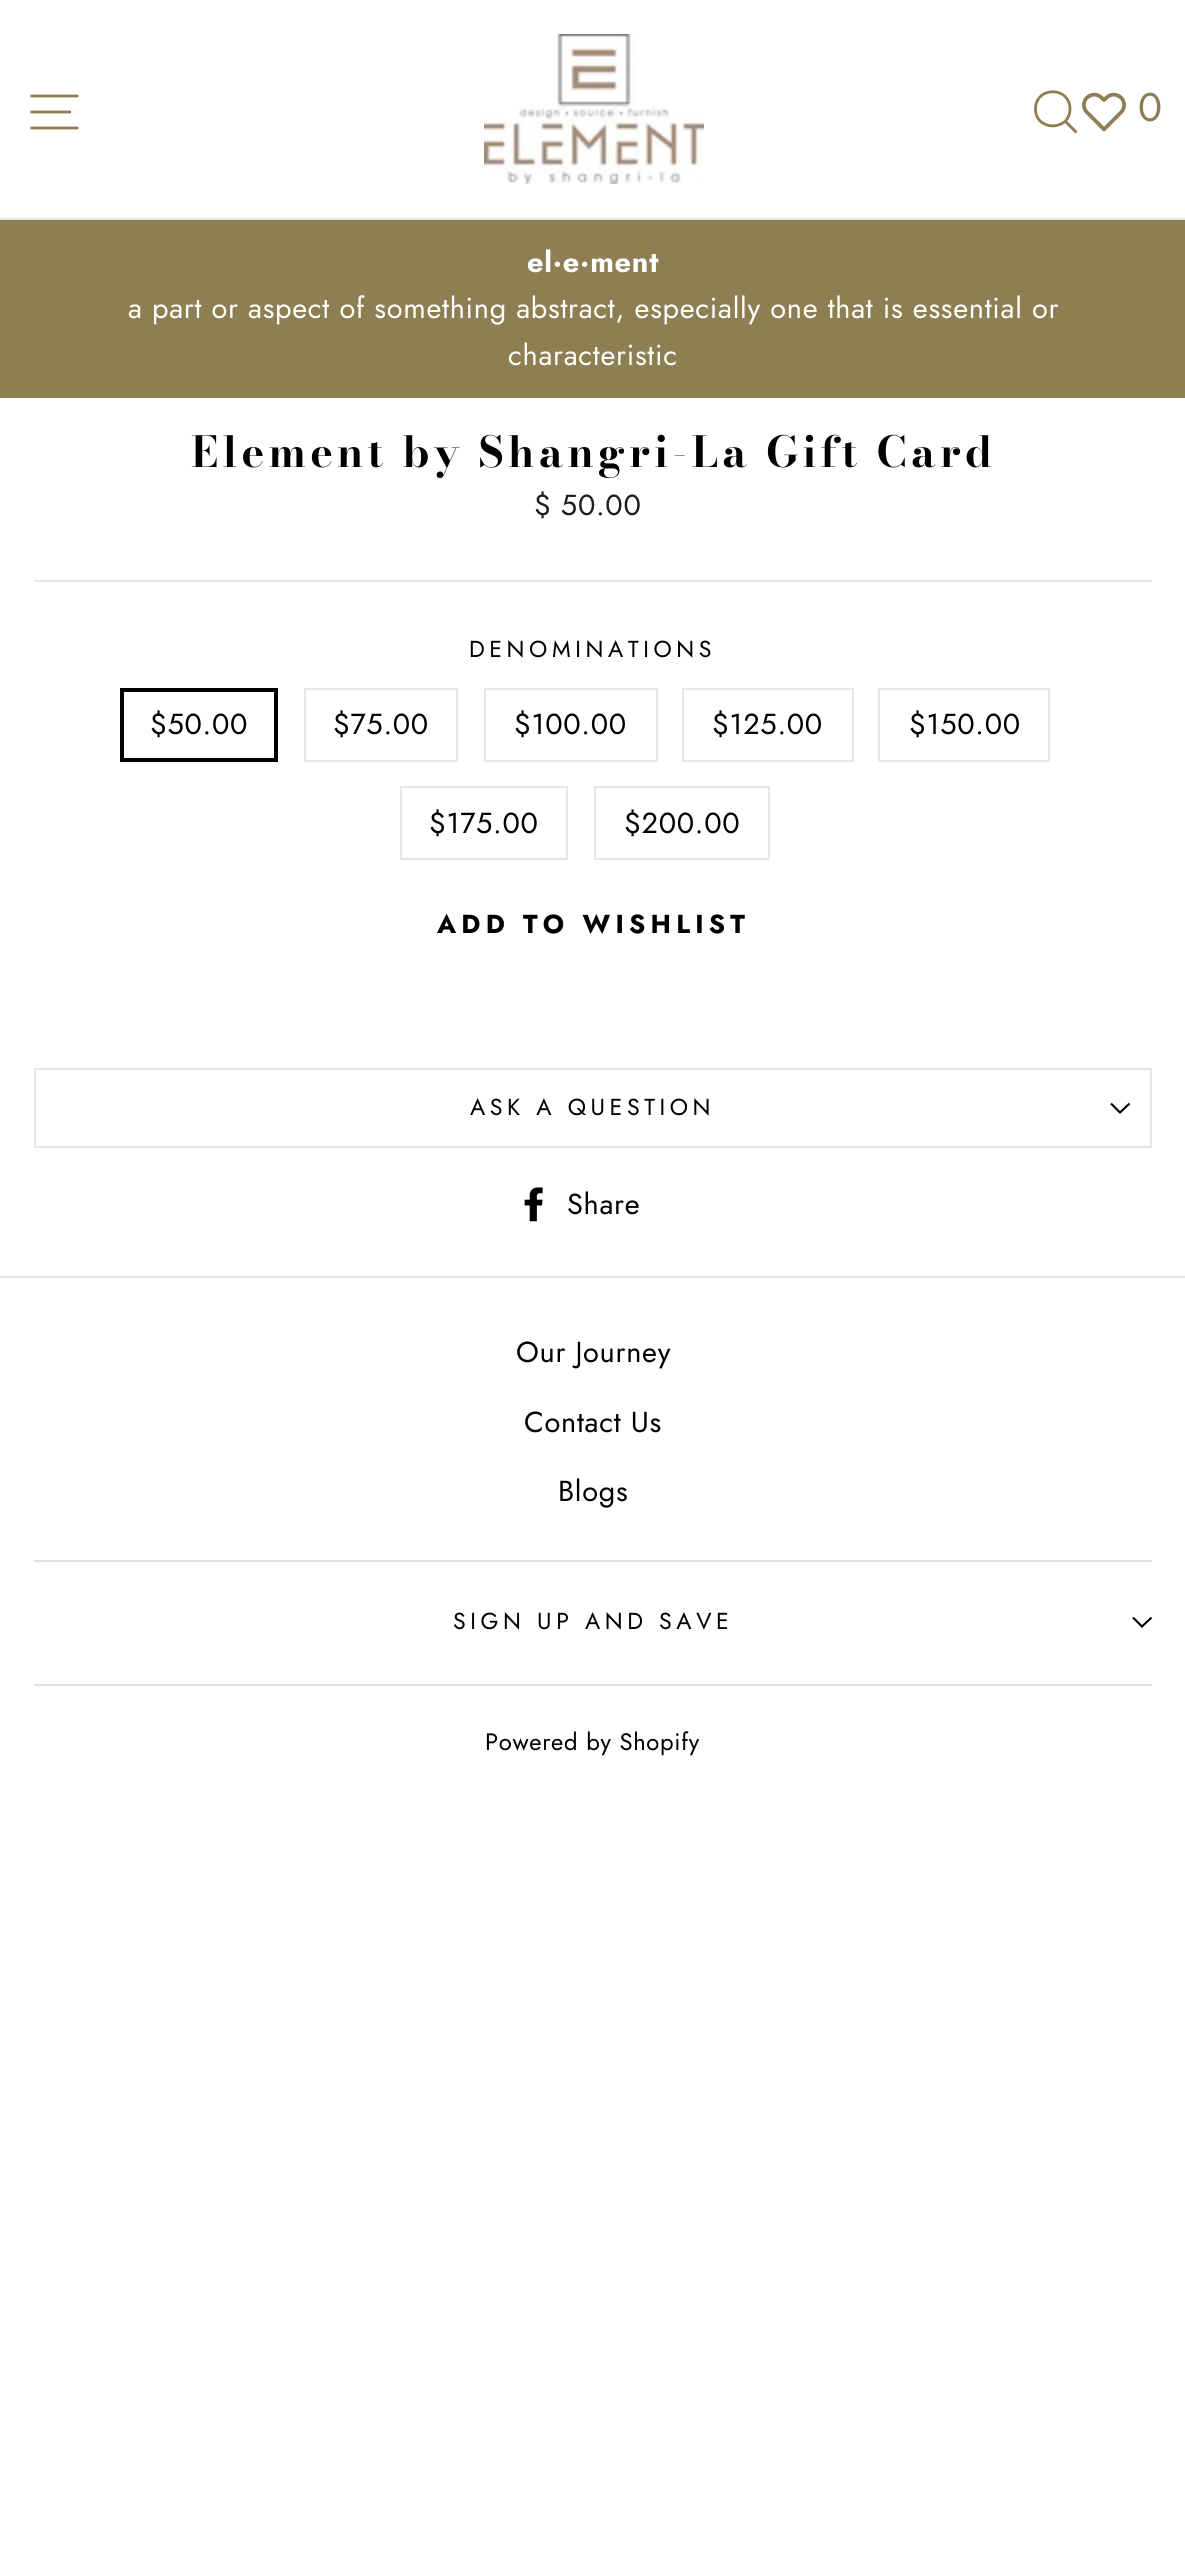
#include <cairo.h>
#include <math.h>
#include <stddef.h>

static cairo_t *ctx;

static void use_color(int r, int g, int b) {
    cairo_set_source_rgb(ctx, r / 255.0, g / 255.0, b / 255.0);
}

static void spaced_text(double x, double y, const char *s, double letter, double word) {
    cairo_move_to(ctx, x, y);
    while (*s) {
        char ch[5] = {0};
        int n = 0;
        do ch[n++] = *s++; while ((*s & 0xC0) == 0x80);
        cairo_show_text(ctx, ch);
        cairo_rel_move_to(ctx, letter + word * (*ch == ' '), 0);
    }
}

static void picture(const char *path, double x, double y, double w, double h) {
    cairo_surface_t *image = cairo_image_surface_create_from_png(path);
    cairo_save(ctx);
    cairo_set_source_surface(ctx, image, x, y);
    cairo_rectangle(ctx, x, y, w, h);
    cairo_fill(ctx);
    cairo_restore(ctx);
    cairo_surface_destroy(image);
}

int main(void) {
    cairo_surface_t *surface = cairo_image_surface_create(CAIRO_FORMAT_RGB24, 1185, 2571);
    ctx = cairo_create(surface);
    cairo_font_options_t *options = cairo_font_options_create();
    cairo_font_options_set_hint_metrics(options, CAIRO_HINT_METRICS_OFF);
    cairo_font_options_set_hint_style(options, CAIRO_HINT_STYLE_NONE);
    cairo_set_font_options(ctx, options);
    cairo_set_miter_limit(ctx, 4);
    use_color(255, 255, 255);
    cairo_paint(ctx);
    use_color(232, 232, 225);
    cairo_rectangle(ctx, 0, 218, 1185, 2);
    cairo_fill(ctx);
    cairo_new_path(ctx);
    cairo_move_to(ctx, 30.5, 96);
    cairo_line_to(ctx, 78.5, 96);
    cairo_move_to(ctx, 30.5, 112);
    cairo_line_to(ctx, 71, 112);
    cairo_move_to(ctx, 30.5, 128);
    cairo_line_to(ctx, 78.5, 128);
    use_color(141, 127, 81);
    cairo_set_line_width(ctx, 2.8);
    cairo_stroke(ctx);
    picture("img1.png", 484, 34, 220, 150);
    cairo_new_path(ctx);
    cairo_move_to(ctx, 1070, 109);
    cairo_curve_to(ctx, 1070, 131.5, 1035.5, 131.5, 1035.5, 109);
    cairo_curve_to(ctx, 1035.5, 86, 1070, 86, 1070, 109);
    cairo_close_path(ctx);
    cairo_move_to(ctx, 1076.5, 132.5);
    cairo_line_to(ctx, 1065.5, 121.5);
    cairo_stroke(ctx);
    picture("img2.png", 1082, 92, 44, 40);
    cairo_select_font_face(ctx, "Jost", CAIRO_FONT_SLANT_NORMAL, CAIRO_FONT_WEIGHT_NORMAL);
    cairo_set_font_size(ctx, 40);
    spaced_text(1138, 121, "0", 0.72, 0);
    cairo_rectangle(ctx, 0, 220, 1185, 178);
    cairo_fill(ctx);
    cairo_select_font_face(ctx, "Jost", CAIRO_FONT_SLANT_NORMAL, CAIRO_FONT_WEIGHT_BOLD);
    cairo_set_font_size(ctx, 28.9);
    use_color(255, 255, 255);
    spaced_text(527, 272, "el·e·ment", 0.72, 0);
    cairo_select_font_face(ctx, "Jost", CAIRO_FONT_SLANT_NORMAL, CAIRO_FONT_WEIGHT_NORMAL);
    spaced_text(128, 318, "a part or aspect of something abstract, especially one that is essential or", 0.72, 0);
    spaced_text(508, 365, "characteristic", 0.72, 0);
    cairo_select_font_face(ctx, "Bodoni Moda", CAIRO_FONT_SLANT_NORMAL, CAIRO_FONT_WEIGHT_BOLD);
    cairo_set_font_size(ctx, 42.4);
    use_color(0, 0, 0);
    spaced_text(191, 467, "Element by Shangri-La Gift Card", 4.25, 0);
    cairo_select_font_face(ctx, "Jost", CAIRO_FONT_SLANT_NORMAL, CAIRO_FONT_WEIGHT_NORMAL);
    cairo_set_font_size(ctx, 28.9);
    use_color(28, 29, 29);
    spaced_text(534, 515, "$ 50.00", 0.72, 0);
    use_color(232, 232, 225);
    cairo_rectangle(ctx, 34, 580, 1118, 2);
    cairo_fill(ctx);
    cairo_set_font_size(ctx, 23.1);
    use_color(0, 0, 0);
    spaced_text(469, 657, "DENOMINATIONS", 4.6, 0);
    cairo_rectangle(ctx, 122, 690, 154, 70);
    cairo_set_line_width(ctx, 4);
    cairo_stroke(ctx);
    cairo_set_font_size(ctx, 28.9);
    spaced_text(150, 734, "$50.00", 0.72, 0);
    cairo_rectangle(ctx, 305, 689, 152, 72);
    use_color(232, 232, 225);
    cairo_set_line_width(ctx, 2);
    cairo_stroke(ctx);
    use_color(0, 0, 0);
    spaced_text(333, 734, "$75.00", 0.72, 0);
    cairo_rectangle(ctx, 485, 689, 172, 72);
    use_color(232, 232, 225);
    cairo_stroke(ctx);
    use_color(0, 0, 0);
    spaced_text(514, 734, "$100.00", 0.72, 0);
    cairo_rectangle(ctx, 683, 689, 170, 72);
    use_color(232, 232, 225);
    cairo_stroke(ctx);
    use_color(0, 0, 0);
    spaced_text(712, 734, "$125.00", 0.72, 0);
    cairo_rectangle(ctx, 879, 689, 170, 72);
    use_color(232, 232, 225);
    cairo_stroke(ctx);
    use_color(0, 0, 0);
    spaced_text(909, 734, "$150.00", 0.72, 0);
    cairo_rectangle(ctx, 401, 787, 166, 72);
    use_color(232, 232, 225);
    cairo_stroke(ctx);
    use_color(0, 0, 0);
    spaced_text(429, 833, "$175.00", 0.72, 0);
    cairo_rectangle(ctx, 595, 787, 174, 72);
    use_color(232, 232, 225);
    cairo_stroke(ctx);
    use_color(0, 0, 0);
    spaced_text(624, 833, "$200.00", 0.72, 0);
    cairo_select_font_face(ctx, "Jost", CAIRO_FONT_SLANT_NORMAL, CAIRO_FONT_WEIGHT_BOLD);
    cairo_set_font_size(ctx, 26);
    spaced_text(437, 933, "ADD TO WISHLIST", 5.25, 0);
    use_color(232, 232, 225);
    cairo_rectangle(ctx, 34, 1146, 1118, 2);
    cairo_fill(ctx);
    cairo_rectangle(ctx, 34, 1068, 1118, 2);
    cairo_fill(ctx);
    cairo_rectangle(ctx, 1150, 1068, 2, 78);
    cairo_fill(ctx);
    cairo_rectangle(ctx, 34, 1068, 2, 78);
    cairo_fill(ctx);
    cairo_select_font_face(ctx, "Jost", CAIRO_FONT_SLANT_NORMAL, CAIRO_FONT_WEIGHT_NORMAL);
    cairo_set_font_size(ctx, 23.1);
    use_color(0, 0, 0);
    spaced_text(470, 1115, "ASK A QUESTION", 4.6, 0);
    cairo_new_path(ctx);
    cairo_move_to(ctx, 1111, 1103.5);
    cairo_line_to(ctx, 1120, 1112.5);
    cairo_line_to(ctx, 1129.5, 1103.5);
    cairo_set_line_width(ctx, 2.1);
    cairo_stroke(ctx);
    picture("img3.png", 524, 1187, 19, 35);
    cairo_set_font_size(ctx, 28.9);
    spaced_text(567, 1214, "Share", 0.72, 0);
    use_color(232, 232, 225);
    cairo_rectangle(ctx, 0, 1276, 1185, 2);
    cairo_fill(ctx);
    use_color(0, 0, 0);
    spaced_text(516, 1362, "Our Journey", 0.72, 0);
    spaced_text(524, 1432, "Contact Us", 0.72, 0);
    spaced_text(558, 1501, "Blogs", 0.72, 0);
    use_color(224, 224, 224);
    cairo_rectangle(ctx, 34, 1560, 1118, 2);
    cairo_fill(ctx);
    cairo_set_font_size(ctx, 23.1);
    use_color(0, 0, 0);
    spaced_text(453, 1629, "SIGN UP AND SAVE", 4.6, 0);
    cairo_new_path(ctx);
    cairo_move_to(ctx, 1133, 1617.5);
    cairo_line_to(ctx, 1142, 1626.5);
    cairo_line_to(ctx, 1151.5, 1617.5);
    cairo_stroke(ctx);
    use_color(224, 224, 224);
    cairo_rectangle(ctx, 34, 1684, 1118, 2);
    cairo_fill(ctx);
    cairo_set_font_size(ctx, 23.75);
    use_color(0, 0, 0);
    spaced_text(485, 1750, "Powered by Shopify", 0.72, 0);
    cairo_surface_write_to_png(surface, "result.png");
    cairo_font_options_destroy(options);
    cairo_destroy(ctx);
    cairo_surface_destroy(surface);
    return 0;
}
